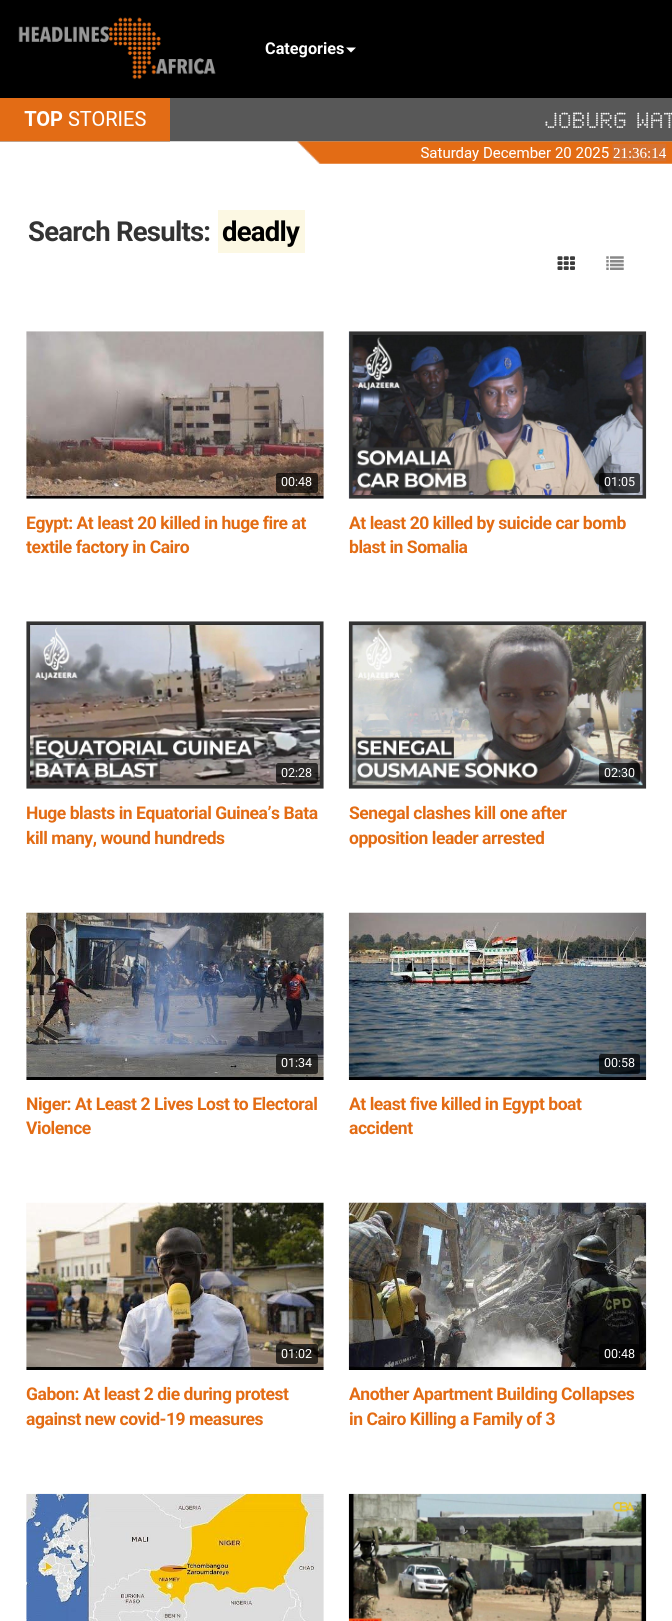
#include <cairo.h>
#include <math.h>
#include <stddef.h>

static cairo_t *ctx;

static void use_color(int r, int g, int b) {
    cairo_set_source_rgb(ctx, r / 255.0, g / 255.0, b / 255.0);
}

static void spaced_text(double x, double y, const char *s, double letter, double word) {
    cairo_move_to(ctx, x, y);
    while (*s) {
        char ch[5] = {0};
        int n = 0;
        do ch[n++] = *s++; while ((*s & 0xC0) == 0x80);
        cairo_show_text(ctx, ch);
        cairo_rel_move_to(ctx, letter + word * (*ch == ' '), 0);
    }
}

static void round_rect(double x, double y, double w, double h, double r) {
    cairo_new_sub_path(ctx);
    cairo_arc(ctx, x + w - r, y + h - r, r, 0, M_PI / 2);
    cairo_arc(ctx, x + r, y + h - r, r, M_PI / 2, M_PI);
    cairo_arc(ctx, x + r, y + r, r, M_PI, 1.5 * M_PI);
    cairo_arc(ctx, x + w - r, y + r, r, 1.5 * M_PI, 2 * M_PI);
    cairo_close_path(ctx);
}

static void picture(const char *path, double x, double y, double w, double h) {
    cairo_surface_t *image = cairo_image_surface_create_from_png(path);
    cairo_save(ctx);
    cairo_set_source_surface(ctx, image, x, y);
    cairo_rectangle(ctx, x, y, w, h);
    cairo_fill(ctx);
    cairo_restore(ctx);
    cairo_surface_destroy(image);
}

int main(void) {
    cairo_surface_t *surface = cairo_image_surface_create(CAIRO_FORMAT_RGB24, 672, 1621);
    ctx = cairo_create(surface);
    cairo_font_options_t *options = cairo_font_options_create();
    cairo_font_options_set_hint_metrics(options, CAIRO_HINT_METRICS_OFF);
    cairo_font_options_set_hint_style(options, CAIRO_HINT_STYLE_NONE);
    cairo_set_font_options(ctx, options);
    cairo_set_miter_limit(ctx, 4);
    use_color(255, 255, 255);
    cairo_paint(ctx);
    use_color(0, 0, 0);
    cairo_rectangle(ctx, 0, 0, 672, 98);
    cairo_fill(ctx);
    picture("img1.png", 18, 17, 198, 63);
    cairo_select_font_face(ctx, "Roboto", CAIRO_FONT_SLANT_NORMAL, CAIRO_FONT_WEIGHT_BOLD);
    cairo_set_font_size(ctx, 16.25);
    use_color(255, 255, 255);
    cairo_move_to(ctx, 265, 54);
    cairo_show_text(ctx, "Categories");
    cairo_new_path(ctx);
    cairo_move_to(ctx, 346, 47.5);
    cairo_line_to(ctx, 356, 47.5);
    cairo_line_to(ctx, 351, 52.5);
    cairo_close_path(ctx);
    cairo_fill(ctx);
    picture("img2.png", 0, 98, 672, 66);
    cairo_set_font_size(ctx, 27.5);
    use_color(51, 51, 51);
    spaced_text(28, 241, "Search Results:", -0.75, 0);
    use_color(252, 248, 227);
    cairo_rectangle(ctx, 218, 210, 87, 43);
    cairo_fill(ctx);
    use_color(0, 0, 0);
    spaced_text(222, 241, "deadly", -0.75, 0);
    picture("img3.png", 557, 256, 18, 14);
    picture("img4.png", 606, 256, 18, 14);
    use_color(250, 250, 250);
    cairo_rectangle(ctx, 26, 331, 298, 168);
    cairo_fill(ctx);
    picture("img5.png", 26, 331, 298, 168);
    cairo_set_source_rgba(ctx, 0, 0, 0, 0.7);
    round_rect(276, 473, 42, 20, 2.5);
    cairo_fill(ctx);
    cairo_select_font_face(ctx, "Roboto", CAIRO_FONT_SLANT_NORMAL, CAIRO_FONT_WEIGHT_NORMAL);
    cairo_set_font_size(ctx, 12.5);
    use_color(255, 255, 255);
    cairo_move_to(ctx, 281, 486);
    cairo_show_text(ctx, "00:48");
    cairo_select_font_face(ctx, "Roboto", CAIRO_FONT_SLANT_NORMAL, CAIRO_FONT_WEIGHT_BOLD);
    cairo_set_font_size(ctx, 17.5);
    use_color(227, 108, 20);
    spaced_text(26, 529, "Egypt: At least 20 killed in huge fire at", -0.45, 0);
    spaced_text(26, 553, "textile factory in Cairo", -0.45, 0);
    use_color(250, 250, 250);
    cairo_rectangle(ctx, 349, 331, 297, 168);
    cairo_fill(ctx);
    picture("img6.png", 348, 331, 299, 168);
    cairo_set_source_rgba(ctx, 0, 0, 0, 0.7);
    round_rect(599, 473, 41, 20, 2.5);
    cairo_fill(ctx);
    cairo_select_font_face(ctx, "Roboto", CAIRO_FONT_SLANT_NORMAL, CAIRO_FONT_WEIGHT_NORMAL);
    cairo_set_font_size(ctx, 12.5);
    use_color(255, 255, 255);
    cairo_move_to(ctx, 604, 486);
    cairo_show_text(ctx, "01:05");
    cairo_select_font_face(ctx, "Roboto", CAIRO_FONT_SLANT_NORMAL, CAIRO_FONT_WEIGHT_BOLD);
    cairo_set_font_size(ctx, 17.5);
    use_color(227, 108, 20);
    spaced_text(349, 529, "At least 20 killed by suicide car bomb", -0.45, 0);
    spaced_text(349, 553, "blast in Somalia", -0.45, 0);
    use_color(250, 250, 250);
    cairo_rectangle(ctx, 26, 621, 298, 168);
    cairo_fill(ctx);
    picture("img7.png", 26, 621, 298, 168);
    cairo_set_source_rgba(ctx, 0, 0, 0, 0.7);
    round_rect(276, 763, 42, 20, 2.5);
    cairo_fill(ctx);
    cairo_select_font_face(ctx, "Roboto", CAIRO_FONT_SLANT_NORMAL, CAIRO_FONT_WEIGHT_NORMAL);
    cairo_set_font_size(ctx, 12.5);
    use_color(255, 255, 255);
    cairo_move_to(ctx, 281, 777);
    cairo_show_text(ctx, "02:28");
    cairo_select_font_face(ctx, "Roboto", CAIRO_FONT_SLANT_NORMAL, CAIRO_FONT_WEIGHT_BOLD);
    cairo_set_font_size(ctx, 17.5);
    use_color(227, 108, 20);
    spaced_text(26, 819, "Huge blasts in Equatorial Guinea’s Bata", -0.45, 0);
    spaced_text(26, 844, "kill many, wound hundreds", -0.45, 0);
    use_color(250, 250, 250);
    cairo_rectangle(ctx, 349, 621, 297, 168);
    cairo_fill(ctx);
    picture("img8.png", 348, 621, 299, 168);
    cairo_set_source_rgba(ctx, 0, 0, 0, 0.7);
    round_rect(599, 763, 41, 20, 2.5);
    cairo_fill(ctx);
    cairo_select_font_face(ctx, "Roboto", CAIRO_FONT_SLANT_NORMAL, CAIRO_FONT_WEIGHT_NORMAL);
    cairo_set_font_size(ctx, 12.5);
    use_color(255, 255, 255);
    cairo_move_to(ctx, 604, 777);
    cairo_show_text(ctx, "02:30");
    cairo_select_font_face(ctx, "Roboto", CAIRO_FONT_SLANT_NORMAL, CAIRO_FONT_WEIGHT_BOLD);
    cairo_set_font_size(ctx, 17.5);
    use_color(227, 108, 20);
    spaced_text(349, 819, "Senegal clashes kill one after", -0.45, 0);
    spaced_text(349, 844, "opposition leader arrested", -0.45, 0);
    use_color(250, 250, 250);
    cairo_rectangle(ctx, 26, 913, 298, 167);
    cairo_fill(ctx);
    picture("img9.png", 26, 912, 298, 168);
    cairo_set_source_rgba(ctx, 0, 0, 0, 0.7);
    round_rect(276, 1054, 42, 20, 2.5);
    cairo_fill(ctx);
    cairo_select_font_face(ctx, "Roboto", CAIRO_FONT_SLANT_NORMAL, CAIRO_FONT_WEIGHT_NORMAL);
    cairo_set_font_size(ctx, 12.5);
    use_color(255, 255, 255);
    cairo_move_to(ctx, 281, 1067);
    cairo_show_text(ctx, "01:34");
    cairo_select_font_face(ctx, "Roboto", CAIRO_FONT_SLANT_NORMAL, CAIRO_FONT_WEIGHT_BOLD);
    cairo_set_font_size(ctx, 17.5);
    use_color(227, 108, 20);
    spaced_text(26, 1110, "Niger: At Least 2 Lives Lost to Electoral", -0.45, 0);
    spaced_text(26, 1134, "Violence", -0.45, 0);
    picture("img10.png", 348, 912, 299, 168);
    cairo_set_source_rgba(ctx, 0, 0, 0, 0.7);
    round_rect(599, 1054, 41, 20, 2.5);
    cairo_fill(ctx);
    cairo_select_font_face(ctx, "Roboto", CAIRO_FONT_SLANT_NORMAL, CAIRO_FONT_WEIGHT_NORMAL);
    cairo_set_font_size(ctx, 12.5);
    use_color(255, 255, 255);
    cairo_move_to(ctx, 604, 1067);
    cairo_show_text(ctx, "00:58");
    cairo_select_font_face(ctx, "Roboto", CAIRO_FONT_SLANT_NORMAL, CAIRO_FONT_WEIGHT_BOLD);
    cairo_set_font_size(ctx, 17.5);
    use_color(227, 108, 20);
    spaced_text(349, 1110, "At least five killed in Egypt boat", -0.45, 0);
    spaced_text(349, 1134, "accident", -0.45, 0);
    use_color(250, 250, 250);
    cairo_rectangle(ctx, 26, 1203, 298, 167);
    cairo_fill(ctx);
    picture("img11.png", 26, 1202, 298, 168);
    cairo_set_source_rgba(ctx, 0, 0, 0, 0.7);
    round_rect(276, 1344, 42, 20, 2.5);
    cairo_fill(ctx);
    cairo_select_font_face(ctx, "Roboto", CAIRO_FONT_SLANT_NORMAL, CAIRO_FONT_WEIGHT_NORMAL);
    cairo_set_font_size(ctx, 12.5);
    use_color(255, 255, 255);
    cairo_move_to(ctx, 281, 1358);
    cairo_show_text(ctx, "01:02");
    cairo_select_font_face(ctx, "Roboto", CAIRO_FONT_SLANT_NORMAL, CAIRO_FONT_WEIGHT_BOLD);
    cairo_set_font_size(ctx, 17.5);
    use_color(227, 108, 20);
    spaced_text(26, 1400, "Gabon: At least 2 die during protest", -0.45, 0);
    spaced_text(26, 1425, "against new covid-19 measures", -0.45, 0);
    picture("img12.png", 348, 1202, 299, 168);
    cairo_set_source_rgba(ctx, 0, 0, 0, 0.7);
    round_rect(599, 1344, 41, 20, 2.5);
    cairo_fill(ctx);
    cairo_select_font_face(ctx, "Roboto", CAIRO_FONT_SLANT_NORMAL, CAIRO_FONT_WEIGHT_NORMAL);
    cairo_set_font_size(ctx, 12.5);
    use_color(255, 255, 255);
    cairo_move_to(ctx, 604, 1358);
    cairo_show_text(ctx, "00:48");
    cairo_select_font_face(ctx, "Roboto", CAIRO_FONT_SLANT_NORMAL, CAIRO_FONT_WEIGHT_BOLD);
    cairo_set_font_size(ctx, 17.5);
    use_color(227, 108, 20);
    spaced_text(349, 1400, "Another Apartment Building Collapses", -0.45, 0);
    spaced_text(349, 1425, "in Cairo Killing a Family of 3", -0.45, 0);
    use_color(250, 250, 250);
    cairo_rectangle(ctx, 26, 1494, 298, 127);
    cairo_fill(ctx);
    picture("img13.png", 26, 1493, 298, 128);
    picture("img14.png", 348, 1493, 299, 128);
    cairo_surface_write_to_png(surface, "result.png");
    cairo_font_options_destroy(options);
    cairo_destroy(ctx);
    cairo_surface_destroy(surface);
    return 0;
}
